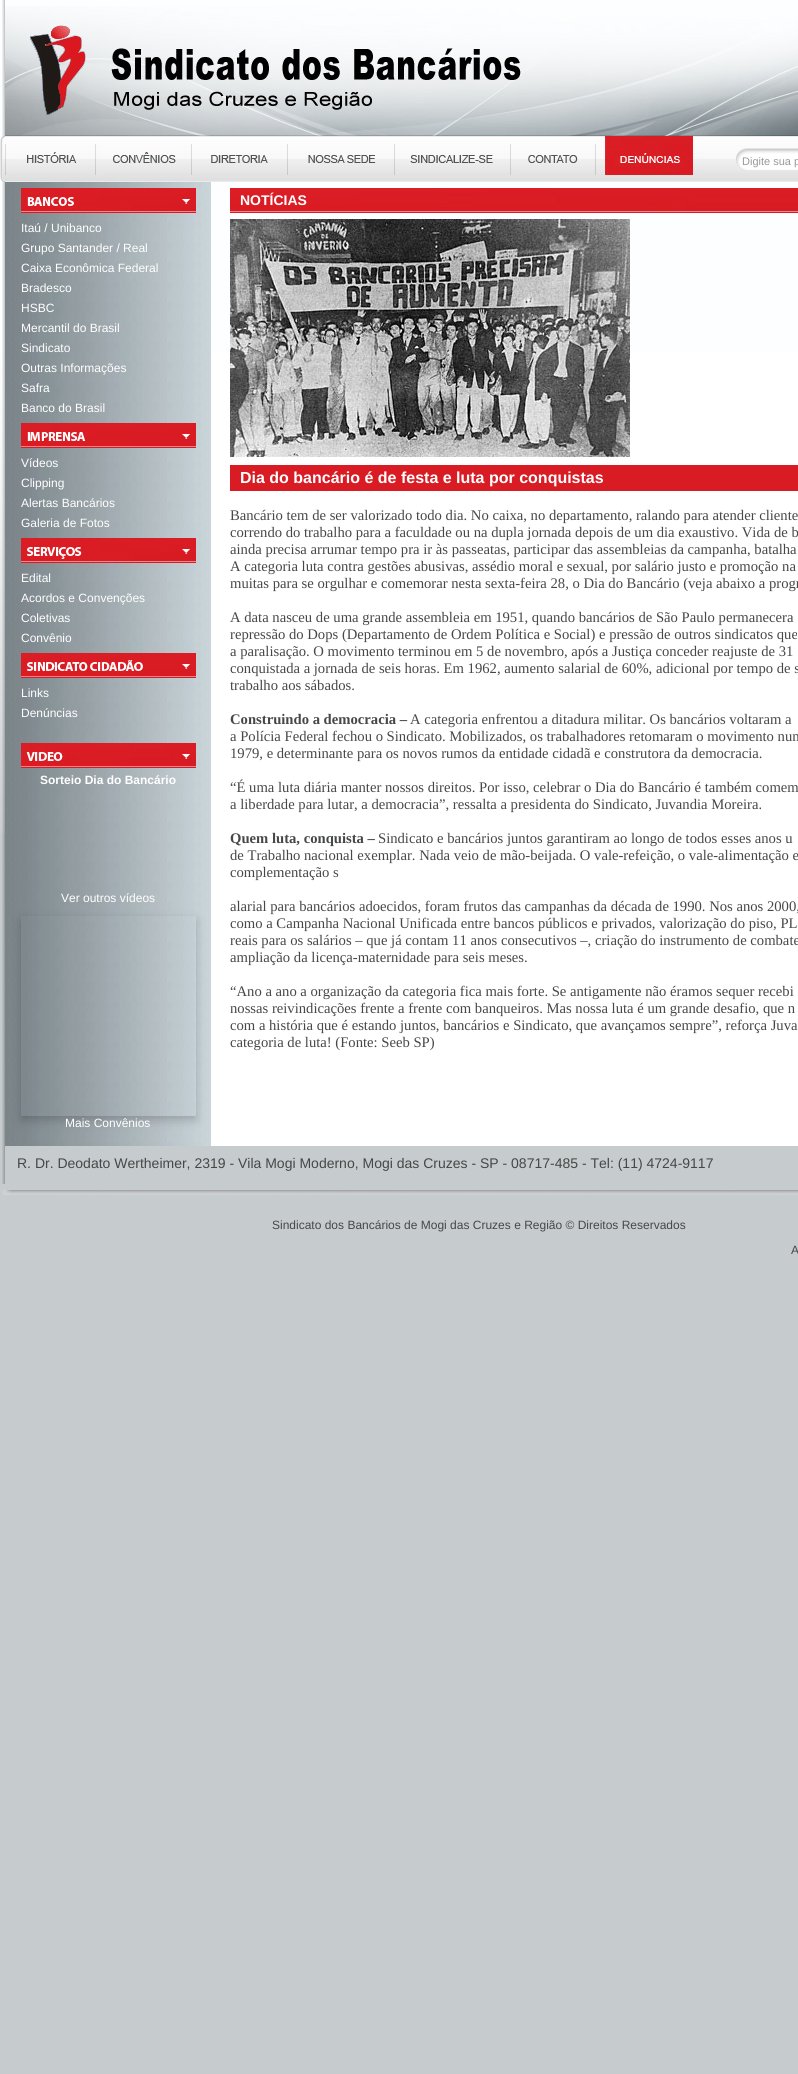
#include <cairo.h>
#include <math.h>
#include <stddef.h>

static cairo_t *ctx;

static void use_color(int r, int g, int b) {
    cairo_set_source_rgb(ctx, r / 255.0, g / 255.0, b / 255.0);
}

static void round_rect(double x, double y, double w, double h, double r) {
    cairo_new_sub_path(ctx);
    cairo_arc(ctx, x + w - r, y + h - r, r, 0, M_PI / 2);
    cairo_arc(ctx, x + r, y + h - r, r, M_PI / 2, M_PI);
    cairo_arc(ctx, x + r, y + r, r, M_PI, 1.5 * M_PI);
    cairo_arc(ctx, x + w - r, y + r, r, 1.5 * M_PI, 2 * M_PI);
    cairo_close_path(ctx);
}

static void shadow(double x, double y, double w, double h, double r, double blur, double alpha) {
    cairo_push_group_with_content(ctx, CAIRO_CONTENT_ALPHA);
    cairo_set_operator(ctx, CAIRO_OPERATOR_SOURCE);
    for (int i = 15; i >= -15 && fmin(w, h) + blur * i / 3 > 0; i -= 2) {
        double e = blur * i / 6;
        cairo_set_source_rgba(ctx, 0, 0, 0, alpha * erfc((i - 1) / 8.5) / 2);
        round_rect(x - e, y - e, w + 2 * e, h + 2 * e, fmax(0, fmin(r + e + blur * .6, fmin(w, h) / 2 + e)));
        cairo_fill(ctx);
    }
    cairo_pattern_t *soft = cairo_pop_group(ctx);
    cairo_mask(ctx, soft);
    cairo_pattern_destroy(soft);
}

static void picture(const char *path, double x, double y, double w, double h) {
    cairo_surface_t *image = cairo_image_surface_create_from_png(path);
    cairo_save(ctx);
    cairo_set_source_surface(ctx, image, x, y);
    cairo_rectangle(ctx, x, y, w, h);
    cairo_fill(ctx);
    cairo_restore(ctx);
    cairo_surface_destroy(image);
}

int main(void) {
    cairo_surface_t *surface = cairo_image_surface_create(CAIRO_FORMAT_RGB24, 798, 2074);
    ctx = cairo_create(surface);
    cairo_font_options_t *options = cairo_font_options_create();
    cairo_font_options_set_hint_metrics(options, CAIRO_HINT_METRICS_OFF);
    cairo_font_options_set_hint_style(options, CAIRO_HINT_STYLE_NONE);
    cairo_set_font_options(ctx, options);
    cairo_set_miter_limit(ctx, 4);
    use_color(198, 203, 205);
    cairo_paint(ctx);
    picture("img1.png", 0, 0, 798, 833);
    picture("img2.png", 2, 0, 3, 136);
    picture("img3.png", 5, 6, 793, 130);
    picture("img4.png", 0, 136, 5, 46);
    picture("img5.png", 5, 136, 793, 46);
    picture("img6.png", 5, 144, 72, 31);
    picture("img7.png", 95, 144, 81, 32);
    picture("img8.png", 191, 144, 77, 31);
    picture("img9.png", 287, 144, 89, 31);
    picture("img10.png", 394, 144, 99, 31);
    picture("img11.png", 510, 144, 68, 31);
    picture("img12.png", 595, 136, 104, 40);
    picture("img13.png", 736, 148, 62, 23);
    cairo_select_font_face(ctx, "Liberation Sans", CAIRO_FONT_SLANT_NORMAL, CAIRO_FONT_WEIGHT_NORMAL);
    cairo_set_font_size(ctx, 11);
    use_color(155, 152, 152);
    cairo_move_to(ctx, 742, 165);
    cairo_show_text(ctx, "Digite sua p");
    picture("img14.png", 2, 182, 3, 964);
    use_color(255, 255, 255);
    cairo_rectangle(ctx, 211, 353, 587, 793);
    cairo_fill(ctx);
    picture("img15.png", 5, 182, 206, 964);
    picture("img16.png", 21, 188, 175, 25);
    cairo_set_font_size(ctx, 12);
    cairo_move_to(ctx, 21, 232);
    cairo_show_text(ctx, "Itaú / Unibanco");
    cairo_move_to(ctx, 21, 252);
    cairo_show_text(ctx, "Grupo Santander / Real");
    cairo_move_to(ctx, 21, 272);
    cairo_show_text(ctx, "Caixa Econômica Federal");
    cairo_move_to(ctx, 21, 292);
    cairo_show_text(ctx, "Bradesco");
    cairo_move_to(ctx, 21, 312);
    cairo_show_text(ctx, "HSBC");
    cairo_move_to(ctx, 21, 332);
    cairo_show_text(ctx, "Mercantil do Brasil");
    cairo_move_to(ctx, 21, 352);
    cairo_show_text(ctx, "Sindicato");
    cairo_move_to(ctx, 21, 372);
    cairo_show_text(ctx, "Outras Informações");
    cairo_move_to(ctx, 21, 392);
    cairo_show_text(ctx, "Safra");
    cairo_move_to(ctx, 21, 412);
    cairo_show_text(ctx, "Banco do Brasil");
    picture("img17.png", 21, 423, 175, 25);
    cairo_move_to(ctx, 21, 467);
    cairo_show_text(ctx, "Vídeos");
    cairo_move_to(ctx, 21, 487);
    cairo_show_text(ctx, "Clipping");
    cairo_move_to(ctx, 21, 507);
    cairo_show_text(ctx, "Alertas Bancários");
    cairo_move_to(ctx, 21, 527);
    cairo_show_text(ctx, "Galeria de Fotos");
    picture("img18.png", 21, 538, 175, 25);
    cairo_move_to(ctx, 21, 582);
    cairo_show_text(ctx, "Edital");
    cairo_move_to(ctx, 21, 602);
    cairo_show_text(ctx, "Acordos e Convenções");
    cairo_move_to(ctx, 21, 622);
    cairo_show_text(ctx, "Coletivas");
    cairo_move_to(ctx, 21, 642);
    cairo_show_text(ctx, "Convênio");
    picture("img19.png", 21, 653, 175, 25);
    cairo_move_to(ctx, 21, 697);
    cairo_show_text(ctx, "Links");
    cairo_move_to(ctx, 21, 717);
    cairo_show_text(ctx, "Denúncias");
    picture("img20.png", 21, 743, 175, 25);
    cairo_select_font_face(ctx, "Liberation Sans", CAIRO_FONT_SLANT_NORMAL, CAIRO_FONT_WEIGHT_BOLD);
    cairo_move_to(ctx, 40, 784);
    cairo_show_text(ctx, "Sorteio Dia do Bancário");
    cairo_select_font_face(ctx, "Liberation Sans", CAIRO_FONT_SLANT_NORMAL, CAIRO_FONT_WEIGHT_NORMAL);
    cairo_move_to(ctx, 61, 902);
    cairo_show_text(ctx, "Ver outros vídeos");
    cairo_save(ctx);
    cairo_set_fill_rule(ctx, CAIRO_FILL_RULE_EVEN_ODD);
    cairo_new_path(ctx);
    cairo_move_to(ctx, 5, 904);
    cairo_line_to(ctx, 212, 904);
    cairo_line_to(ctx, 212, 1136);
    cairo_line_to(ctx, 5, 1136);
    cairo_close_path(ctx);
    cairo_move_to(ctx, 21, 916);
    cairo_line_to(ctx, 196, 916);
    cairo_line_to(ctx, 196, 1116);
    cairo_line_to(ctx, 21, 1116);
    cairo_close_path(ctx);
    cairo_clip(ctx);
    use_color(0, 0, 0);
    shadow(21, 920, 175, 200, 0, 5, 0.2);
    cairo_restore(ctx);
    cairo_move_to(ctx, 65, 1127);
    cairo_show_text(ctx, "Mais Convênios");
    picture("img21.png", 230, 188, 568, 25);
    cairo_select_font_face(ctx, "Liberation Sans", CAIRO_FONT_SLANT_NORMAL, CAIRO_FONT_WEIGHT_BOLD);
    cairo_set_font_size(ctx, 14);
    cairo_move_to(ctx, 240, 205);
    cairo_show_text(ctx, "NOTÍCIAS");
    picture("img22.png", 230, 219, 400, 238);
    use_color(217, 28, 36);
    cairo_rectangle(ctx, 230, 465, 568, 26);
    cairo_fill(ctx);
    cairo_set_font_size(ctx, 16);
    use_color(255, 255, 255);
    cairo_move_to(ctx, 240, 483);
    cairo_show_text(ctx, "Dia do bancário é de festa e luta por conquistas");
    cairo_select_font_face(ctx, "Liberation Serif", CAIRO_FONT_SLANT_NORMAL, CAIRO_FONT_WEIGHT_NORMAL);
    cairo_set_font_size(ctx, 14.65);
    use_color(70, 71, 71);
    cairo_move_to(ctx, 230, 520);
    cairo_show_text(ctx, "Bancário tem de ser valorizado todo dia. No caixa, no departamento, ralando para atender cliente");
    cairo_move_to(ctx, 230, 537);
    cairo_show_text(ctx, "correndo do trabalho para a faculdade ou na dupla jornada depois de um dia exaustivo. Vida de b");
    cairo_move_to(ctx, 230, 554);
    cairo_show_text(ctx, "ainda precisa arrumar tempo pra ir às passeatas, participar das assembleias da campanha, batalha");
    cairo_move_to(ctx, 230, 571);
    cairo_show_text(ctx, "A categoria luta contra gestões abusivas, assédio moral e sexual, por salário justo e promoção na");
    cairo_move_to(ctx, 230, 588);
    cairo_show_text(ctx, "muitas para se orgulhar e comemorar nesta sexta-feira 28, o Dia do Bancário (veja abaixo a progr");
    cairo_move_to(ctx, 230, 622);
    cairo_show_text(ctx, "A data nasceu de uma grande assembleia em 1951, quando bancários de São Paulo permanecera");
    cairo_move_to(ctx, 230, 639);
    cairo_show_text(ctx, "repressão do Dops (Departamento de Ordem Política e Social) e pressão de outros sindicatos que");
    cairo_move_to(ctx, 230, 656);
    cairo_show_text(ctx, "a paralisação. O movimento terminou em 5 de novembro, após a Justiça conceder reajuste de 31");
    cairo_move_to(ctx, 230, 673);
    cairo_show_text(ctx, "conquistada a jornada de seis horas. Em 1962, aumento salarial de 60%, adicional por tempo de s");
    cairo_move_to(ctx, 230, 690);
    cairo_show_text(ctx, "trabalho aos sábados.");
    cairo_select_font_face(ctx, "Liberation Serif", CAIRO_FONT_SLANT_NORMAL, CAIRO_FONT_WEIGHT_BOLD);
    cairo_move_to(ctx, 230, 724);
    cairo_show_text(ctx, "Construindo a democracia –");
    cairo_select_font_face(ctx, "Liberation Serif", CAIRO_FONT_SLANT_NORMAL, CAIRO_FONT_WEIGHT_NORMAL);
    cairo_move_to(ctx, 410, 724);
    cairo_show_text(ctx, "A categoria enfrentou a ditadura militar. Os bancários voltaram a");
    cairo_move_to(ctx, 230, 741);
    cairo_show_text(ctx, "a Polícia Federal fechou o Sindicato. Mobilizados, os trabalhadores retomaram o movimento num");
    cairo_move_to(ctx, 230, 758);
    cairo_show_text(ctx, "1979, e determinante para os novos rumos da entidade cidadã e construtora da democracia.");
    cairo_move_to(ctx, 230, 792);
    cairo_show_text(ctx, "“É uma luta diária manter nossos direitos. Por isso, celebrar o Dia do Bancário é também comem");
    cairo_move_to(ctx, 230, 809);
    cairo_show_text(ctx, "a liberdade para lutar, a democracia”, ressalta a presidenta do Sindicato, Juvandia Moreira.");
    cairo_select_font_face(ctx, "Liberation Serif", CAIRO_FONT_SLANT_NORMAL, CAIRO_FONT_WEIGHT_BOLD);
    cairo_move_to(ctx, 230, 843);
    cairo_show_text(ctx, "Quem luta, conquista –");
    cairo_select_font_face(ctx, "Liberation Serif", CAIRO_FONT_SLANT_NORMAL, CAIRO_FONT_WEIGHT_NORMAL);
    cairo_move_to(ctx, 378, 843);
    cairo_show_text(ctx, "Sindicato e bancários juntos garantiram ao longo de todos esses anos u");
    cairo_move_to(ctx, 230, 860);
    cairo_show_text(ctx, "de Trabalho nacional exemplar. Nada veio de mão-beijada. O vale-refeição, o vale-alimentação e");
    cairo_move_to(ctx, 230, 877);
    cairo_show_text(ctx, "complementação s");
    cairo_move_to(ctx, 230, 911);
    cairo_show_text(ctx, "alarial para bancários adoecidos, foram frutos das campanhas da década de 1990. Nos anos 2000,");
    cairo_move_to(ctx, 230, 928);
    cairo_show_text(ctx, "como a Campanha Nacional Unificada entre bancos públicos e privados, valorização do piso, PL");
    cairo_move_to(ctx, 230, 945);
    cairo_show_text(ctx, "reais para os salários – que já contam 11 anos consecutivos –, criação do instrumento de combate");
    cairo_move_to(ctx, 230, 962);
    cairo_show_text(ctx, "ampliação da licença-maternidade para seis meses.");
    cairo_move_to(ctx, 230, 996);
    cairo_show_text(ctx, "“Ano a ano a organização da categoria fica mais forte. Se antigamente não éramos sequer recebi");
    cairo_move_to(ctx, 230, 1013);
    cairo_show_text(ctx, "nossas reivindicações frente a frente com banqueiros. Mas nossa luta é um grande desafio, que n");
    cairo_move_to(ctx, 230, 1030);
    cairo_show_text(ctx, "com a história que é estando juntos, bancários e Sindicato, que avançamos sempre”, reforça Juva");
    cairo_move_to(ctx, 230, 1047);
    cairo_show_text(ctx, "categoria de luta! (Fonte: Seeb SP)");
    picture("img23.png", 2, 1146, 3, 38);
    cairo_select_font_face(ctx, "Liberation Sans", CAIRO_FONT_SLANT_NORMAL, CAIRO_FONT_WEIGHT_NORMAL);
    cairo_set_font_size(ctx, 14);
    cairo_move_to(ctx, 17, 1168);
    cairo_show_text(ctx, "R. Dr. Deodato Wertheimer, 2319 - Vila Mogi Moderno, Mogi das Cruzes - SP - 08717-485 - Tel: (11) 4724-9117");
    picture("img24.png", 3, 1190, 795, 5);
    cairo_set_font_size(ctx, 12);
    cairo_move_to(ctx, 272, 1229);
    cairo_show_text(ctx, "Sindicato dos Bancários de Mogi das Cruzes e Região © Direitos Reservados");
    cairo_move_to(ctx, 791, 1254);
    cairo_show_text(ctx, "A");
    cairo_surface_write_to_png(surface, "result.png");
    cairo_font_options_destroy(options);
    cairo_destroy(ctx);
    cairo_surface_destroy(surface);
    return 0;
}
